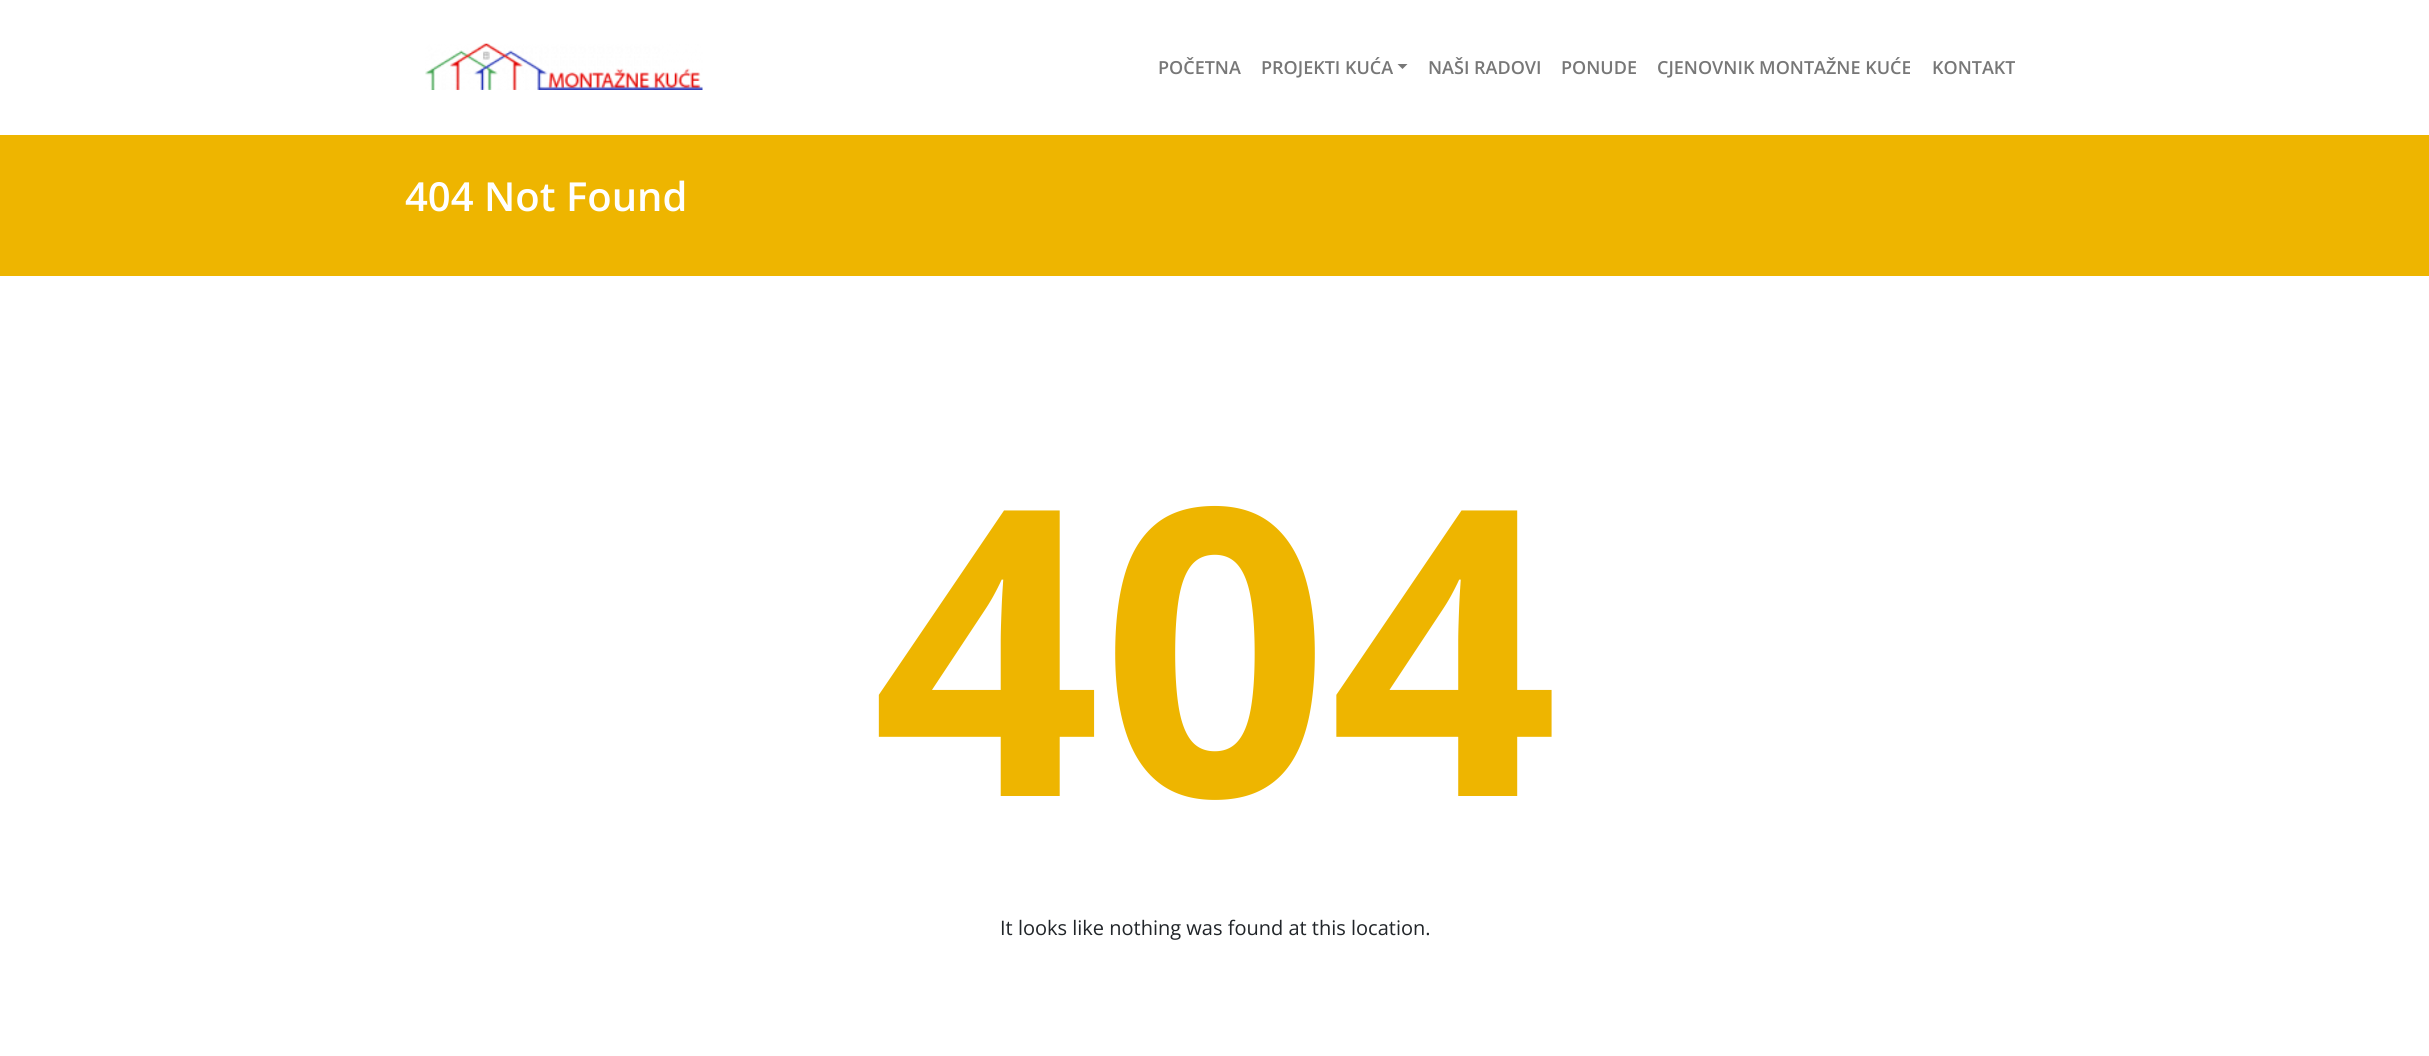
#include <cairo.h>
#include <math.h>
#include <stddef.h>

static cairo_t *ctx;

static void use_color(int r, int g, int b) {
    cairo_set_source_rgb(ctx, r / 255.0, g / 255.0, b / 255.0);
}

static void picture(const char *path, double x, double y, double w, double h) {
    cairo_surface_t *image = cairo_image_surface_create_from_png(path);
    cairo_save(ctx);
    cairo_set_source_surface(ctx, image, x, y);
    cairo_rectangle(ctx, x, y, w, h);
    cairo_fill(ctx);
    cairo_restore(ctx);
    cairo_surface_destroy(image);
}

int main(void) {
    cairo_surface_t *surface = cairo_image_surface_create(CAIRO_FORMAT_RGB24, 2429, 1056);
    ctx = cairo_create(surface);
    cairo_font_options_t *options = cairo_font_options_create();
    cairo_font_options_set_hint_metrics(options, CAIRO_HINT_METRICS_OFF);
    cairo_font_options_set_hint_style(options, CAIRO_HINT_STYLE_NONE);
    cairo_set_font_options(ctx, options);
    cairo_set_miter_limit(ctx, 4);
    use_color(255, 255, 255);
    cairo_paint(ctx);
    picture("img1.png", 425, 43, 278, 47);
    cairo_select_font_face(ctx, "Open Sans SemiBold", CAIRO_FONT_SLANT_NORMAL, CAIRO_FONT_WEIGHT_NORMAL);
    cairo_set_font_size(ctx, 18);
    use_color(119, 119, 119);
    cairo_move_to(ctx, 1158, 74);
    cairo_show_text(ctx, "POČETNA");
    cairo_move_to(ctx, 1261, 74);
    cairo_show_text(ctx, "PROJEKTI KUĆA");
    cairo_new_path(ctx);
    cairo_move_to(ctx, 1397.5, 64);
    cairo_line_to(ctx, 1407.5, 64);
    cairo_line_to(ctx, 1402.5, 69);
    cairo_close_path(ctx);
    cairo_fill(ctx);
    cairo_move_to(ctx, 1428, 74);
    cairo_show_text(ctx, "NAŠI RADOVI");
    cairo_move_to(ctx, 1561, 74);
    cairo_show_text(ctx, "PONUDE");
    cairo_move_to(ctx, 1657, 74);
    cairo_show_text(ctx, "CJENOVNIK MONTAŽNE KUĆE");
    cairo_move_to(ctx, 1932, 74);
    cairo_show_text(ctx, "KONTAKT");
    use_color(238, 181, 0);
    cairo_rectangle(ctx, 0, 135, 2429, 141);
    cairo_fill(ctx);
    cairo_set_font_size(ctx, 40);
    use_color(255, 255, 255);
    cairo_move_to(ctx, 405, 211);
    cairo_show_text(ctx, "404 Not Found");
    cairo_select_font_face(ctx, "Open Sans", CAIRO_FONT_SLANT_NORMAL, CAIRO_FONT_WEIGHT_BOLD);
    cairo_set_font_size(ctx, 400);
    use_color(238, 181, 0);
    cairo_move_to(ctx, 872, 796);
    cairo_show_text(ctx, "404");
    cairo_select_font_face(ctx, "Open Sans", CAIRO_FONT_SLANT_NORMAL, CAIRO_FONT_WEIGHT_NORMAL);
    cairo_set_font_size(ctx, 20);
    use_color(33, 37, 41);
    cairo_move_to(ctx, 1000, 935);
    cairo_show_text(ctx, "It looks like nothing was found at this location.");
    cairo_surface_write_to_png(surface, "result.png");
    cairo_font_options_destroy(options);
    cairo_destroy(ctx);
    cairo_surface_destroy(surface);
    return 0;
}
